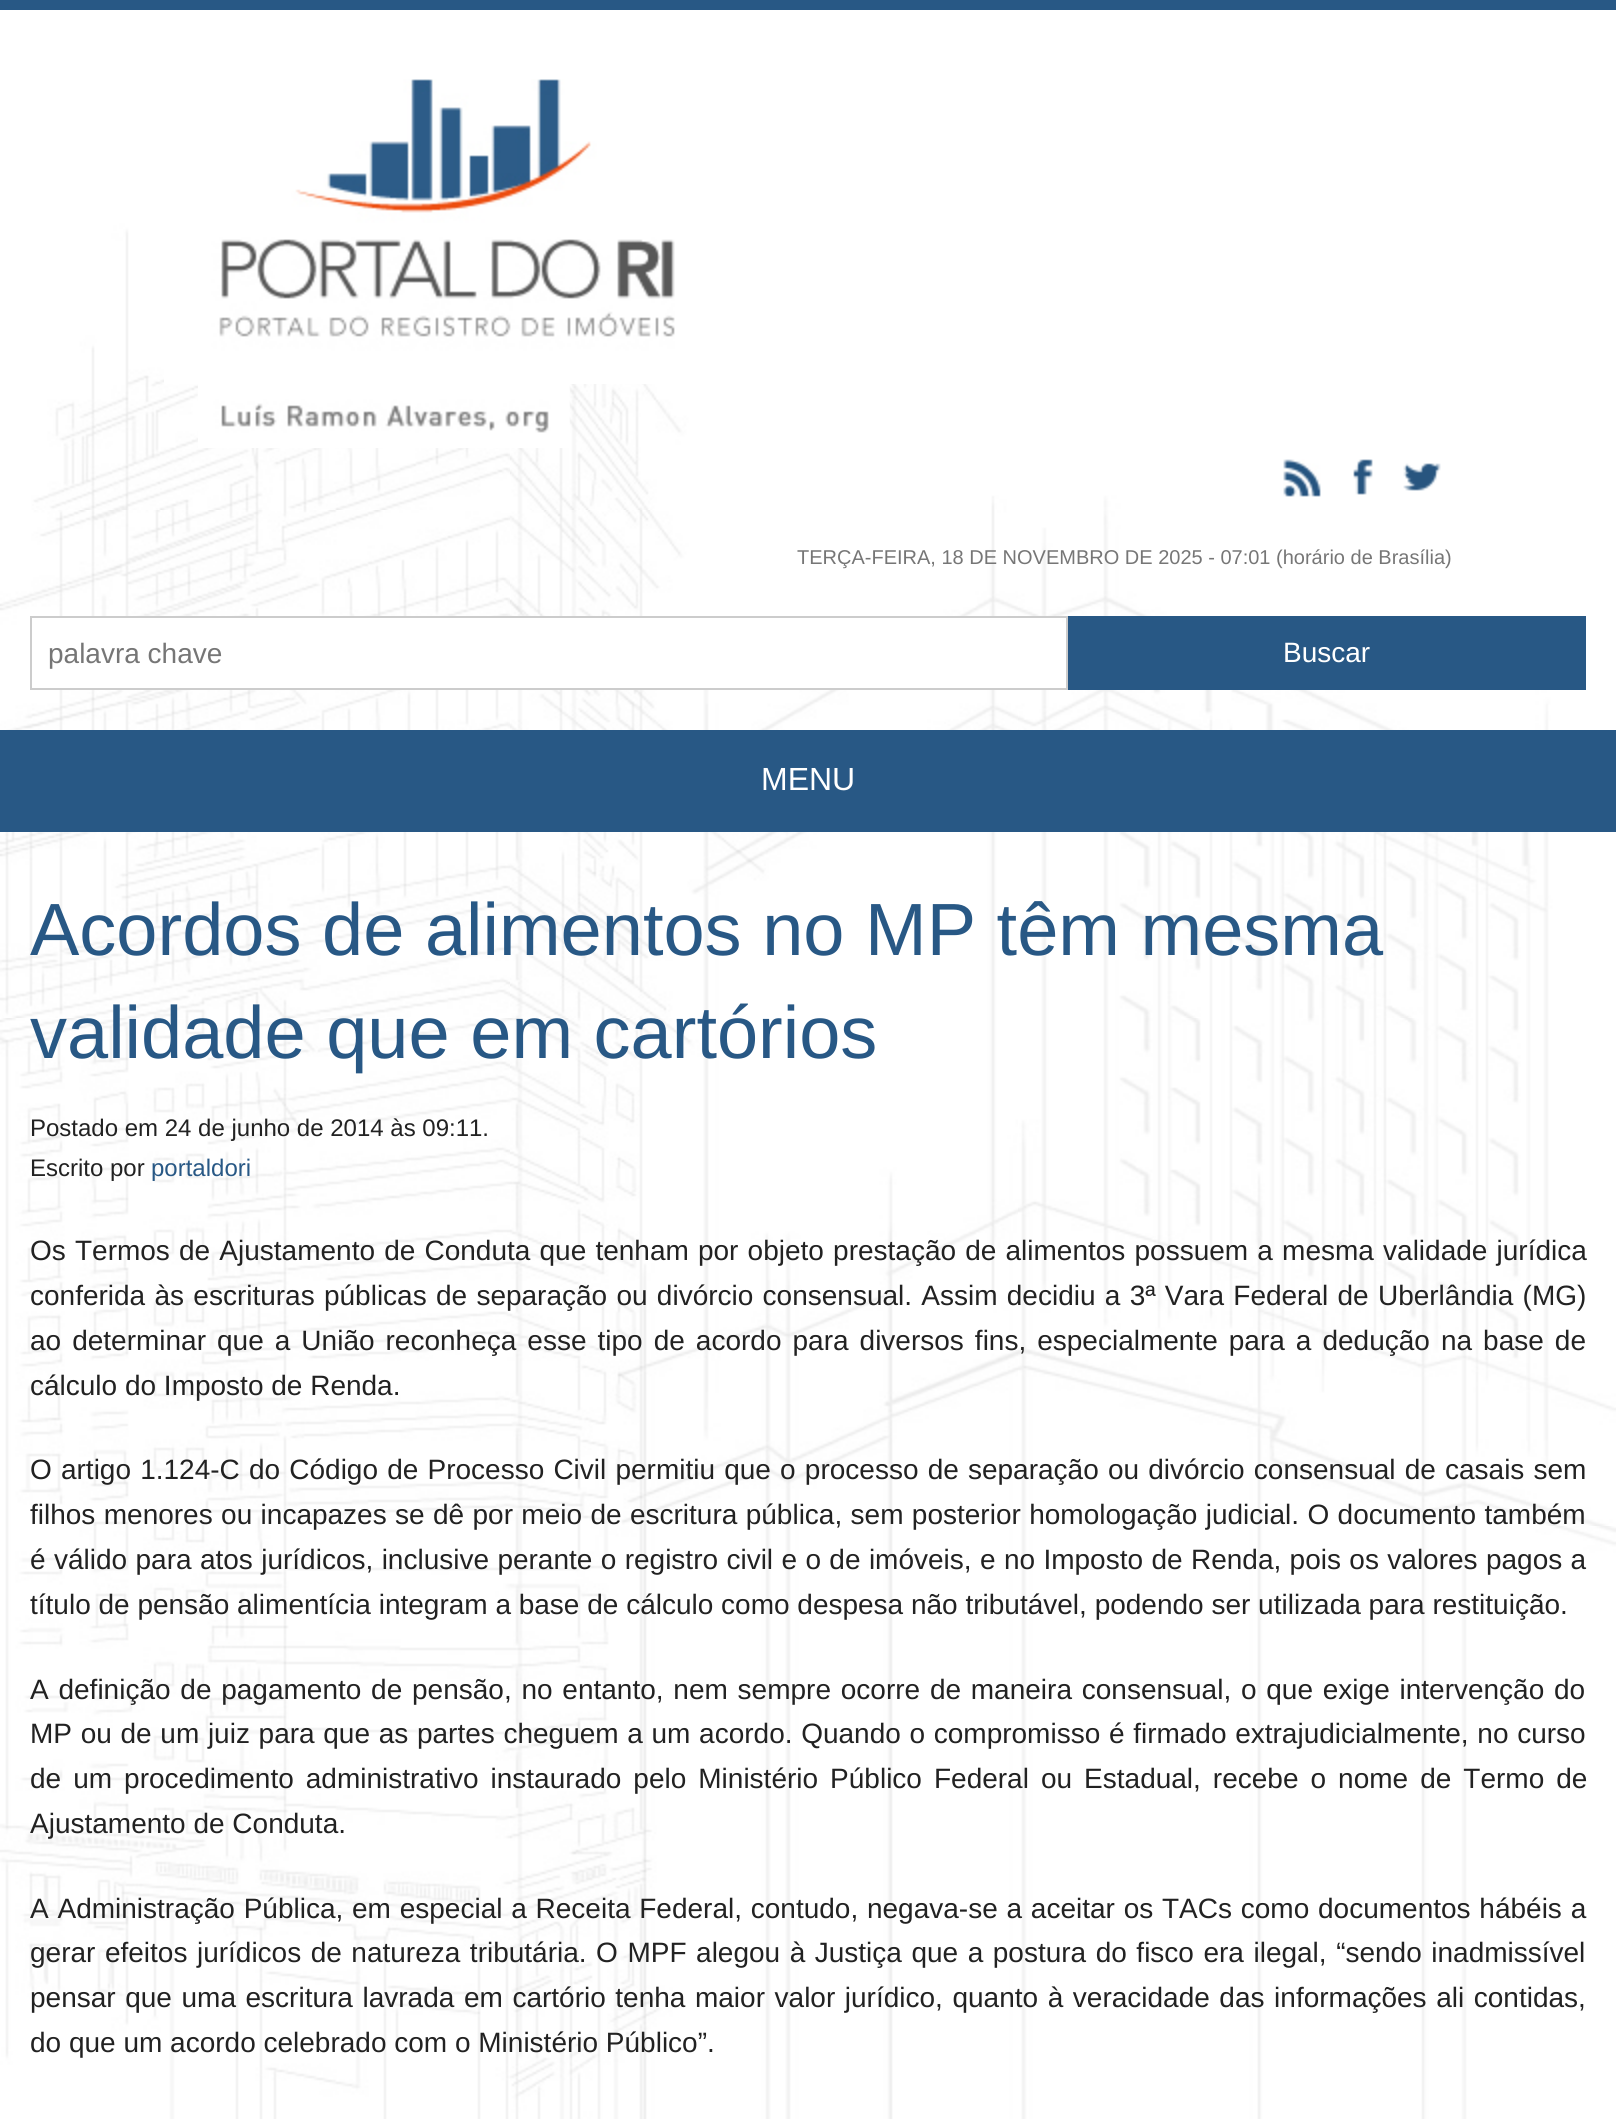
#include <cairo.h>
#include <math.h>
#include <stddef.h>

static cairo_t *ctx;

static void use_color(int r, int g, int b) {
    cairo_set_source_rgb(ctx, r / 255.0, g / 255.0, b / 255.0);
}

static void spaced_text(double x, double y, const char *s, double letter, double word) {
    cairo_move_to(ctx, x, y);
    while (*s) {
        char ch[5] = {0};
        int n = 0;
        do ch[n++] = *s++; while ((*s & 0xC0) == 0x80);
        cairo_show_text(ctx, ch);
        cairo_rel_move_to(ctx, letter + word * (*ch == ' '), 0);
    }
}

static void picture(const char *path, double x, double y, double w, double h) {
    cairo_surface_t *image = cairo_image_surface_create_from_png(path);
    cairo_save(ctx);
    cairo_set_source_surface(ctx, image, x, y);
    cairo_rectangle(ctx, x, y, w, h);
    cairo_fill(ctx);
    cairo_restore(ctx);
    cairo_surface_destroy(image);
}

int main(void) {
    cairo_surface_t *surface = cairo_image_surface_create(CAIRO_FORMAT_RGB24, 1616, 2119);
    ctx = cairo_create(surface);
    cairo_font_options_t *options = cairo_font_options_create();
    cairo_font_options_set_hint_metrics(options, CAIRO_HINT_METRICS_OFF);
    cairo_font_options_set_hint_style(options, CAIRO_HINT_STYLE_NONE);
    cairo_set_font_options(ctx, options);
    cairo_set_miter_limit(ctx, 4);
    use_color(255, 255, 255);
    cairo_paint(ctx);
    picture("img1.png", 0, 156, 1616, 1963);
    use_color(40, 88, 133);
    cairo_rectangle(ctx, 0, 0, 1616, 10);
    cairo_fill(ctx);
    picture("img2.png", 164, 79, 511, 305);
    picture("img3.png", 198, 384, 372, 64);
    picture("img4.png", 1283, 459, 38, 38);
    picture("img5.png", 1353, 459, 20, 36);
    picture("img6.png", 1403, 463, 38, 28);
    cairo_select_font_face(ctx, "Liberation Sans", CAIRO_FONT_SLANT_NORMAL, CAIRO_FONT_WEIGHT_NORMAL);
    cairo_set_font_size(ctx, 20);
    use_color(118, 118, 118);
    cairo_move_to(ctx, 797, 564);
    cairo_show_text(ctx, "TERÇA-FEIRA, 18 DE NOVEMBRO DE 2025 - 07:01 (horário de Brasília)");
    use_color(255, 255, 255);
    cairo_rectangle(ctx, 59, 618, 1003, 70);
    cairo_fill(ctx);
    cairo_rectangle(ctx, 31, 617, 1036, 72);
    use_color(204, 204, 204);
    cairo_stroke(ctx);
    cairo_set_font_size(ctx, 28);
    use_color(118, 118, 118);
    cairo_move_to(ctx, 48, 663);
    cairo_show_text(ctx, "palavra chave");
    use_color(40, 88, 133);
    cairo_rectangle(ctx, 1068, 616, 518, 74);
    cairo_fill(ctx);
    use_color(255, 255, 255);
    cairo_move_to(ctx, 1283, 662);
    cairo_show_text(ctx, "Buscar");
    use_color(40, 88, 133);
    cairo_rectangle(ctx, 0, 730, 1616, 102);
    cairo_fill(ctx);
    cairo_set_font_size(ctx, 32);
    use_color(255, 255, 255);
    cairo_move_to(ctx, 761, 790);
    cairo_show_text(ctx, "MENU");
    cairo_set_font_size(ctx, 74);
    use_color(40, 88, 133);
    cairo_move_to(ctx, 30, 955);
    cairo_show_text(ctx, "Acordos de alimentos no MP têm mesma");
    cairo_move_to(ctx, 30, 1058);
    cairo_show_text(ctx, "validade que em cartórios");
    cairo_set_font_size(ctx, 24);
    use_color(34, 34, 34);
    cairo_move_to(ctx, 30, 1136);
    cairo_show_text(ctx, "Postado em 24 de junho de 2014 às 09:11.");
    cairo_move_to(ctx, 30, 1176);
    cairo_show_text(ctx, "Escrito por");
    use_color(40, 88, 133);
    cairo_move_to(ctx, 151, 1176);
    cairo_show_text(ctx, "portaldori");
    cairo_set_font_size(ctx, 28);
    use_color(34, 34, 34);
    spaced_text(30, 1260, "Os Termos de Ajustamento de Conduta que tenham por objeto prestação de alimentos possuem a mesma validade jurídica", 0, 1.4);
    spaced_text(30, 1305, "conferida às escrituras públicas de separação ou divórcio consensual. Assim decidiu a 3ª Vara Federal de Uberlândia (MG)", 0, 1.5);
    spaced_text(30, 1350, "ao determinar que a União reconheça esse tipo de acordo para diversos fins, especialmente para a dedução na base de", 0, 3.25);
    cairo_move_to(ctx, 30, 1395);
    cairo_show_text(ctx, "cálculo do Imposto de Renda.");
    spaced_text(30, 1479, "O artigo 1.124-C do Código de Processo Civil permitiu que o processo de separação ou divórcio consensual de casais sem", 0, 1.4);
    spaced_text(30, 1524, "filhos menores ou incapazes se dê por meio de escritura pública, sem posterior homologação judicial. O documento também", 0, 0.6);
    spaced_text(30, 1569, "é válido para atos jurídicos, inclusive perante o registro civil e o de imóveis, e no Imposto de Renda, pois os valores pagos a", 0, 0.6);
    cairo_move_to(ctx, 30, 1614);
    cairo_show_text(ctx, "título de pensão alimentícia integram a base de cálculo como despesa não tributável, podendo ser utilizada para restituição.");
    spaced_text(30, 1699, "A definição de pagamento de pensão, no entanto, nem sempre ocorre de maneira consensual, o que exige intervenção do", 0, 2);
    spaced_text(30, 1743, "MP ou de um juiz para que as partes cheguem a um acordo. Quando o compromisso é firmado extrajudicialmente, no curso", 0, 0.9);
    spaced_text(30, 1788, "de um procedimento administrativo instaurado pelo Ministério Público Federal ou Estadual, recebe o nome de Termo de", 0, 4.25);
    cairo_move_to(ctx, 30, 1833);
    cairo_show_text(ctx, "Ajustamento de Conduta.");
    spaced_text(30, 1918, "A Administração Pública, em especial a Receita Federal, contudo, negava-se a aceitar os TACs como documentos hábéis a", 0, 1);
    spaced_text(30, 1962, "gerar efeitos jurídicos de natureza tributária. O MPF alegou à Justiça que a postura do fisco era ilegal, “sendo inadmissível", 0, 1.75);
    spaced_text(30, 2007, "pensar que uma escritura lavrada em cartório tenha maior valor jurídico, quanto à veracidade das informações ali contidas,", 0, 1.8);
    cairo_move_to(ctx, 30, 2052);
    cairo_show_text(ctx, "do que um acordo celebrado com o Ministério Público”.");
    cairo_surface_write_to_png(surface, "result.png");
    cairo_font_options_destroy(options);
    cairo_destroy(ctx);
    cairo_surface_destroy(surface);
    return 0;
}
